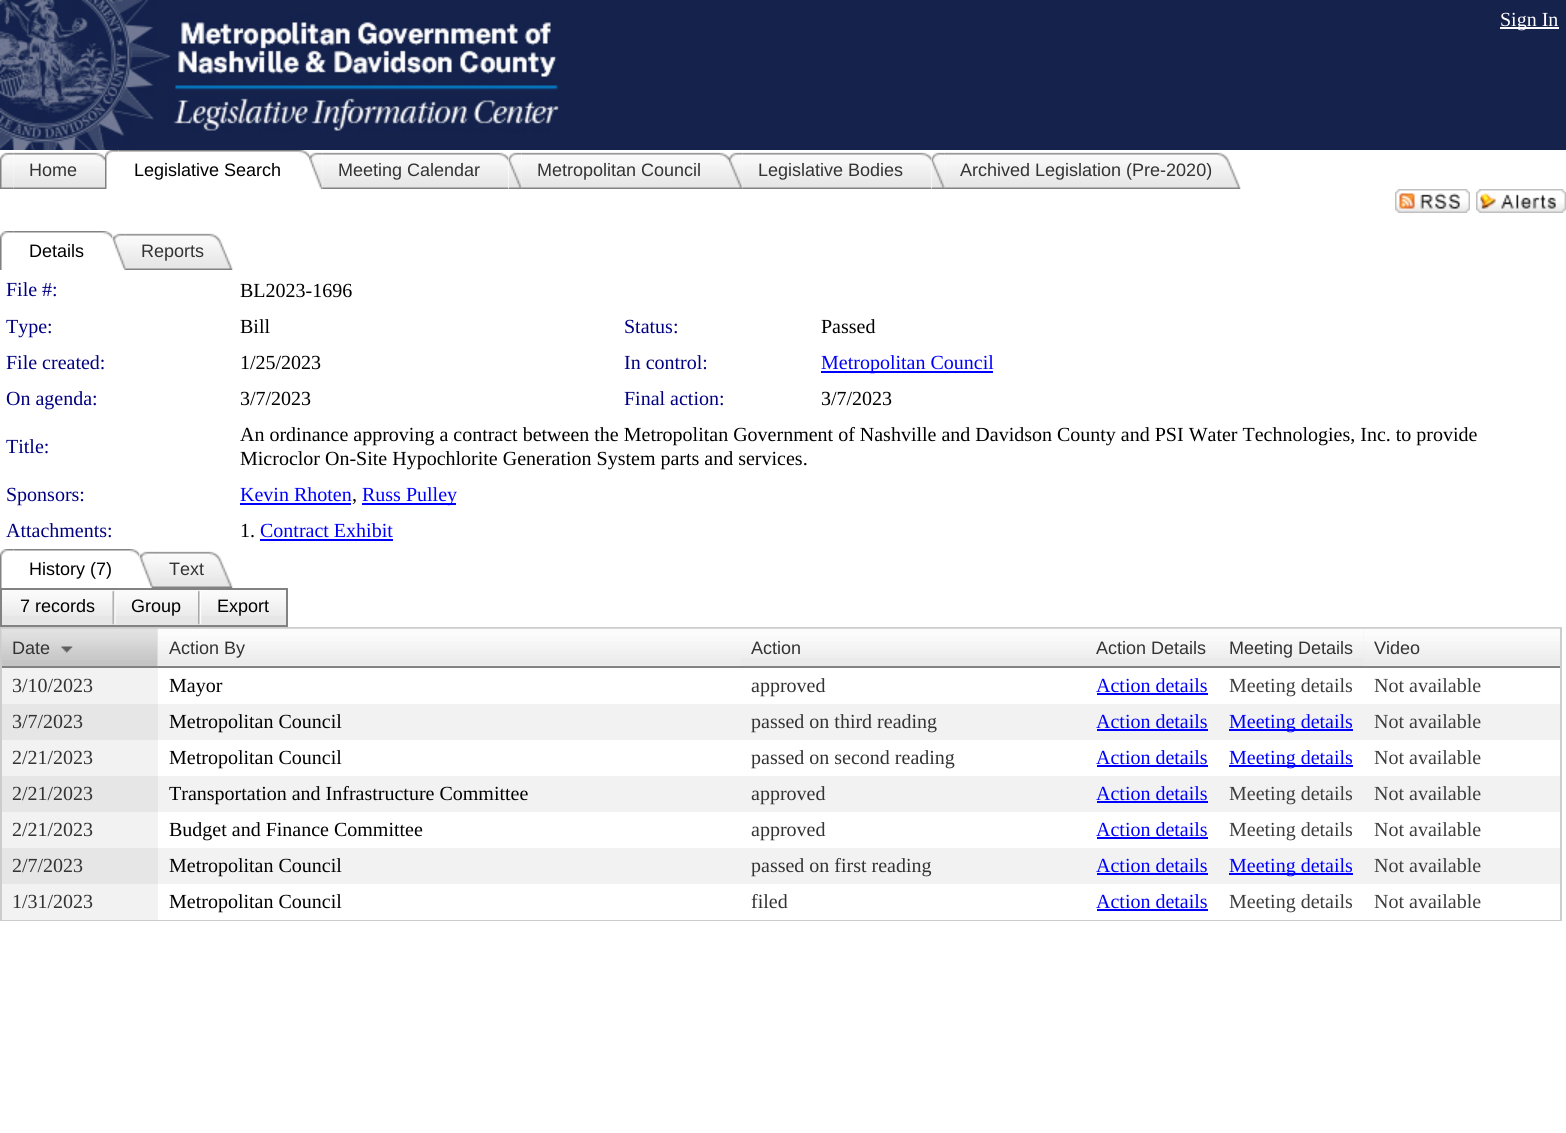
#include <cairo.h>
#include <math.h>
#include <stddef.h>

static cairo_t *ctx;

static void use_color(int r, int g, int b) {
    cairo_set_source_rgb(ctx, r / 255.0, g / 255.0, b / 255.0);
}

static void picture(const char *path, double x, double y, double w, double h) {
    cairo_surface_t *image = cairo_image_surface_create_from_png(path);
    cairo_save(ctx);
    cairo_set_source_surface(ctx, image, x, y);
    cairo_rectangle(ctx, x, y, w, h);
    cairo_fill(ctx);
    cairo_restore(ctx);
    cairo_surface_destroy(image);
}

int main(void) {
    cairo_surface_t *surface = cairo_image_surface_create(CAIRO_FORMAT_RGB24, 1566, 1133);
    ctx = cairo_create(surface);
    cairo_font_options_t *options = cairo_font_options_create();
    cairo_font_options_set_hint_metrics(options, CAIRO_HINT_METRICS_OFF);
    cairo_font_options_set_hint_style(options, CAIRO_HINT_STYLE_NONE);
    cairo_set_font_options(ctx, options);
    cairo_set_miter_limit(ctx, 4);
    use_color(255, 255, 255);
    cairo_paint(ctx);
    use_color(21, 34, 76);
    cairo_rectangle(ctx, 559, 0, 1007, 150);
    cairo_fill(ctx);
    picture("img1.png", 0, 0, 559, 150);
    use_color(255, 255, 255);
    cairo_rectangle(ctx, 1500, 27, 59, 2);
    cairo_fill(ctx);
    cairo_select_font_face(ctx, "Liberation Serif", CAIRO_FONT_SLANT_NORMAL, CAIRO_FONT_WEIGHT_NORMAL);
    cairo_set_font_size(ctx, 20);
    cairo_move_to(ctx, 1500, 26);
    cairo_show_text(ctx, "Sign In");
    picture("img2.png", 0, 152, 14, 37);
    picture("img3.png", 13, 152, 92, 37);
    cairo_select_font_face(ctx, "Liberation Sans", CAIRO_FONT_SLANT_NORMAL, CAIRO_FONT_WEIGHT_NORMAL);
    cairo_set_font_size(ctx, 18);
    use_color(51, 51, 51);
    cairo_move_to(ctx, 29, 176);
    cairo_show_text(ctx, "Home");
    picture("img4.png", 105, 150, 14, 39);
    picture("img5.png", 118, 150, 191, 8);
    use_color(0, 0, 0);
    cairo_move_to(ctx, 134, 176);
    cairo_show_text(ctx, "Legislative Search");
    picture("img6.png", 309, 152, 14, 37);
    picture("img7.png", 322, 152, 187, 37);
    use_color(51, 51, 51);
    cairo_move_to(ctx, 338, 176);
    cairo_show_text(ctx, "Meeting Calendar");
    picture("img8.png", 508, 152, 15, 37);
    picture("img9.png", 522, 152, 207, 37);
    cairo_move_to(ctx, 537, 176);
    cairo_show_text(ctx, "Metropolitan Council");
    picture("img10.png", 729, 152, 14, 37);
    picture("img11.png", 742, 152, 190, 37);
    cairo_move_to(ctx, 758, 176);
    cairo_show_text(ctx, "Legislative Bodies");
    picture("img12.png", 931, 152, 15, 37);
    picture("img13.png", 945, 152, 296, 37);
    cairo_move_to(ctx, 960, 176);
    cairo_show_text(ctx, "Archived Legislation (Pre-2020)");
    picture("img14.png", 1395, 189, 75, 24);
    picture("img15.png", 1476, 189, 90, 24);
    picture("img16.png", 0, 231, 14, 39);
    picture("img17.png", 13, 231, 100, 8);
    use_color(0, 0, 0);
    cairo_move_to(ctx, 29, 257);
    cairo_show_text(ctx, "Details");
    picture("img18.png", 112, 233, 15, 37);
    picture("img19.png", 126, 233, 107, 37);
    use_color(51, 51, 51);
    cairo_move_to(ctx, 141, 257);
    cairo_show_text(ctx, "Reports");
    cairo_select_font_face(ctx, "Liberation Serif", CAIRO_FONT_SLANT_NORMAL, CAIRO_FONT_WEIGHT_NORMAL);
    cairo_set_font_size(ctx, 20);
    use_color(0, 0, 128);
    cairo_move_to(ctx, 6, 296);
    cairo_show_text(ctx, "File #:");
    use_color(0, 0, 0);
    cairo_move_to(ctx, 240, 297);
    cairo_show_text(ctx, "BL2023-1696");
    use_color(0, 0, 128);
    cairo_move_to(ctx, 6, 333);
    cairo_show_text(ctx, "Type:");
    use_color(0, 0, 0);
    cairo_move_to(ctx, 240, 333);
    cairo_show_text(ctx, "Bill");
    use_color(0, 0, 128);
    cairo_move_to(ctx, 624, 333);
    cairo_show_text(ctx, "Status:");
    use_color(0, 0, 0);
    cairo_move_to(ctx, 821, 333);
    cairo_show_text(ctx, "Passed");
    use_color(0, 0, 128);
    cairo_move_to(ctx, 6, 369);
    cairo_show_text(ctx, "File created:");
    use_color(0, 0, 0);
    cairo_move_to(ctx, 240, 369);
    cairo_show_text(ctx, "1/25/2023");
    use_color(0, 0, 128);
    cairo_move_to(ctx, 624, 369);
    cairo_show_text(ctx, "In control:");
    use_color(0, 0, 255);
    cairo_rectangle(ctx, 821, 371, 172, 2);
    cairo_fill(ctx);
    cairo_move_to(ctx, 821, 369);
    cairo_show_text(ctx, "Metropolitan Council");
    use_color(0, 0, 128);
    cairo_move_to(ctx, 6, 405);
    cairo_show_text(ctx, "On agenda:");
    use_color(0, 0, 0);
    cairo_move_to(ctx, 240, 405);
    cairo_show_text(ctx, "3/7/2023");
    use_color(0, 0, 128);
    cairo_move_to(ctx, 624, 405);
    cairo_show_text(ctx, "Final action:");
    use_color(0, 0, 0);
    cairo_move_to(ctx, 821, 405);
    cairo_show_text(ctx, "3/7/2023");
    use_color(0, 0, 128);
    cairo_move_to(ctx, 6, 453);
    cairo_show_text(ctx, "Title:");
    use_color(0, 0, 0);
    cairo_move_to(ctx, 240, 441);
    cairo_show_text(ctx, "An ordinance approving a contract between the Metropolitan Government of Nashville and Davidson County and PSI Water Technologies, Inc. to provide");
    cairo_move_to(ctx, 240, 465);
    cairo_show_text(ctx, "Microclor On-Site Hypochlorite Generation System parts and services.");
    use_color(0, 0, 128);
    cairo_move_to(ctx, 6, 501);
    cairo_show_text(ctx, "Sponsors:");
    use_color(0, 0, 255);
    cairo_move_to(ctx, 240, 501);
    cairo_show_text(ctx, "Kevin Rhoten");
    use_color(0, 0, 0);
    cairo_move_to(ctx, 352, 501);
    cairo_show_text(ctx, ",");
    use_color(0, 0, 255);
    cairo_rectangle(ctx, 240, 503, 111, 2);
    cairo_fill(ctx);
    cairo_rectangle(ctx, 362, 503, 94, 2);
    cairo_fill(ctx);
    cairo_move_to(ctx, 362, 501);
    cairo_show_text(ctx, "Russ Pulley");
    use_color(0, 0, 128);
    cairo_move_to(ctx, 6, 537);
    cairo_show_text(ctx, "Attachments:");
    use_color(0, 0, 0);
    cairo_move_to(ctx, 240, 537);
    cairo_show_text(ctx, "1.");
    use_color(0, 0, 255);
    cairo_move_to(ctx, 260, 537);
    cairo_show_text(ctx, "Contract Exhibit");
    cairo_rectangle(ctx, 260, 539, 133, 2);
    cairo_fill(ctx);
    picture("img4.png", 0, 549, 14, 39);
    picture("img20.png", 13, 549, 127, 8);
    cairo_select_font_face(ctx, "Liberation Sans", CAIRO_FONT_SLANT_NORMAL, CAIRO_FONT_WEIGHT_NORMAL);
    cairo_set_font_size(ctx, 18);
    use_color(0, 0, 0);
    cairo_move_to(ctx, 29, 575);
    cairo_show_text(ctx, "History (7)");
    picture("img21.png", 139, 551, 15, 37);
    picture("img22.png", 153, 551, 80, 37);
    use_color(51, 51, 51);
    cairo_move_to(ctx, 169, 575);
    cairo_show_text(ctx, "Text");
    use_color(230, 230, 230);
    cairo_rectangle(ctx, 2, 616, 284, 9);
    cairo_fill(ctx);
    picture("img23.png", 2, 590, 284, 26);
    cairo_rectangle(ctx, 1, 589, 286, 37);
    use_color(130, 130, 130);
    cairo_stroke(ctx);
    use_color(0, 0, 0);
    cairo_move_to(ctx, 20, 612);
    cairo_show_text(ctx, "7 records");
    picture("img24.png", 112, 590, 4, 35);
    cairo_move_to(ctx, 131, 612);
    cairo_show_text(ctx, "Group");
    picture("img25.png", 198, 590, 4, 35);
    cairo_move_to(ctx, 217, 612);
    cairo_show_text(ctx, "Export");
    cairo_rectangle(ctx, 1, 628, 1560, 292);
    use_color(204, 204, 204);
    cairo_stroke(ctx);
    use_color(196, 196, 196);
    cairo_rectangle(ctx, 2, 629, 156, 37);
    cairo_fill(ctx);
    picture("img26.png", 1, 628, 157, 32);
    use_color(130, 130, 130);
    cairo_rectangle(ctx, 2, 666, 156, 2);
    cairo_fill(ctx);
    use_color(51, 51, 51);
    cairo_move_to(ctx, 12, 654);
    cairo_show_text(ctx, "Date");
    picture("img27.png", 61, 646, 12, 7);
    picture("img28.png", 157, 628, 584, 39);
    use_color(130, 130, 130);
    cairo_rectangle(ctx, 158, 666, 1206, 2);
    cairo_fill(ctx);
    use_color(51, 51, 51);
    cairo_move_to(ctx, 169, 654);
    cairo_show_text(ctx, "Action By");
    use_color(234, 234, 234);
    cairo_rectangle(ctx, 741, 658, 477, 8);
    cairo_fill(ctx);
    picture("img29.png", 741, 628, 345, 30);
    use_color(51, 51, 51);
    cairo_move_to(ctx, 751, 654);
    cairo_show_text(ctx, "Action");
    picture("img30.png", 1086, 628, 132, 30);
    cairo_move_to(ctx, 1096, 654);
    cairo_show_text(ctx, "Action Details");
    use_color(234, 234, 234);
    cairo_rectangle(ctx, 1218, 629, 146, 37);
    cairo_fill(ctx);
    picture("img31.png", 1218, 628, 146, 30);
    use_color(51, 51, 51);
    cairo_move_to(ctx, 1229, 654);
    cairo_show_text(ctx, "Meeting Details");
    picture("img32.png", 1363, 628, 197, 39);
    use_color(130, 130, 130);
    cairo_rectangle(ctx, 1364, 666, 196, 2);
    cairo_fill(ctx);
    use_color(51, 51, 51);
    cairo_move_to(ctx, 1374, 654);
    cairo_show_text(ctx, "Video");
    use_color(242, 242, 242);
    cairo_rectangle(ctx, 2, 668, 156, 36);
    cairo_fill(ctx);
    cairo_select_font_face(ctx, "Liberation Serif", CAIRO_FONT_SLANT_NORMAL, CAIRO_FONT_WEIGHT_NORMAL);
    cairo_set_font_size(ctx, 20);
    use_color(51, 51, 51);
    cairo_move_to(ctx, 12, 692);
    cairo_show_text(ctx, "3/10/2023");
    use_color(0, 0, 0);
    cairo_move_to(ctx, 169, 692);
    cairo_show_text(ctx, "Mayor");
    use_color(51, 51, 51);
    cairo_move_to(ctx, 751, 692);
    cairo_show_text(ctx, "approved");
    use_color(0, 0, 255);
    cairo_move_to(ctx, 1096, 692);
    cairo_show_text(ctx, "Action details");
    cairo_rectangle(ctx, 1097, 693, 111, 2);
    cairo_fill(ctx);
    use_color(61, 61, 61);
    cairo_move_to(ctx, 1229, 692);
    cairo_show_text(ctx, "Meeting details");
    cairo_move_to(ctx, 1374, 692);
    cairo_show_text(ctx, "Not available");
    use_color(242, 242, 242);
    cairo_rectangle(ctx, 158, 704, 1402, 36);
    cairo_fill(ctx);
    use_color(230, 230, 230);
    cairo_rectangle(ctx, 2, 704, 156, 36);
    cairo_fill(ctx);
    use_color(51, 51, 51);
    cairo_move_to(ctx, 12, 728);
    cairo_show_text(ctx, "3/7/2023");
    use_color(0, 0, 0);
    cairo_move_to(ctx, 169, 728);
    cairo_show_text(ctx, "Metropolitan Council");
    use_color(51, 51, 51);
    cairo_move_to(ctx, 751, 728);
    cairo_show_text(ctx, "passed on third reading");
    use_color(0, 0, 255);
    cairo_move_to(ctx, 1096, 728);
    cairo_show_text(ctx, "Action details");
    cairo_rectangle(ctx, 1097, 729, 111, 2);
    cairo_fill(ctx);
    cairo_rectangle(ctx, 1229, 729, 124, 2);
    cairo_fill(ctx);
    cairo_move_to(ctx, 1229, 728);
    cairo_show_text(ctx, "Meeting details");
    use_color(61, 61, 61);
    cairo_move_to(ctx, 1374, 728);
    cairo_show_text(ctx, "Not available");
    use_color(242, 242, 242);
    cairo_rectangle(ctx, 2, 740, 156, 36);
    cairo_fill(ctx);
    use_color(51, 51, 51);
    cairo_move_to(ctx, 12, 764);
    cairo_show_text(ctx, "2/21/2023");
    use_color(0, 0, 0);
    cairo_move_to(ctx, 169, 764);
    cairo_show_text(ctx, "Metropolitan Council");
    use_color(51, 51, 51);
    cairo_move_to(ctx, 751, 764);
    cairo_show_text(ctx, "passed on second reading");
    use_color(0, 0, 255);
    cairo_move_to(ctx, 1096, 764);
    cairo_show_text(ctx, "Action details");
    cairo_rectangle(ctx, 1097, 765, 111, 2);
    cairo_fill(ctx);
    cairo_rectangle(ctx, 1229, 765, 124, 2);
    cairo_fill(ctx);
    cairo_move_to(ctx, 1229, 764);
    cairo_show_text(ctx, "Meeting details");
    use_color(61, 61, 61);
    cairo_move_to(ctx, 1374, 764);
    cairo_show_text(ctx, "Not available");
    use_color(242, 242, 242);
    cairo_rectangle(ctx, 158, 776, 1402, 36);
    cairo_fill(ctx);
    use_color(230, 230, 230);
    cairo_rectangle(ctx, 2, 776, 156, 36);
    cairo_fill(ctx);
    use_color(51, 51, 51);
    cairo_move_to(ctx, 12, 800);
    cairo_show_text(ctx, "2/21/2023");
    use_color(0, 0, 0);
    cairo_move_to(ctx, 169, 800);
    cairo_show_text(ctx, "Transportation and Infrastructure Committee");
    use_color(51, 51, 51);
    cairo_move_to(ctx, 751, 800);
    cairo_show_text(ctx, "approved");
    use_color(0, 0, 255);
    cairo_move_to(ctx, 1096, 800);
    cairo_show_text(ctx, "Action details");
    cairo_rectangle(ctx, 1097, 801, 111, 2);
    cairo_fill(ctx);
    use_color(61, 61, 61);
    cairo_move_to(ctx, 1229, 800);
    cairo_show_text(ctx, "Meeting details");
    cairo_move_to(ctx, 1374, 800);
    cairo_show_text(ctx, "Not available");
    use_color(242, 242, 242);
    cairo_rectangle(ctx, 2, 812, 156, 36);
    cairo_fill(ctx);
    use_color(51, 51, 51);
    cairo_move_to(ctx, 12, 836);
    cairo_show_text(ctx, "2/21/2023");
    use_color(0, 0, 0);
    cairo_move_to(ctx, 169, 836);
    cairo_show_text(ctx, "Budget and Finance Committee");
    use_color(51, 51, 51);
    cairo_move_to(ctx, 751, 836);
    cairo_show_text(ctx, "approved");
    use_color(0, 0, 255);
    cairo_move_to(ctx, 1096, 836);
    cairo_show_text(ctx, "Action details");
    cairo_rectangle(ctx, 1097, 837, 111, 2);
    cairo_fill(ctx);
    use_color(61, 61, 61);
    cairo_move_to(ctx, 1229, 836);
    cairo_show_text(ctx, "Meeting details");
    cairo_move_to(ctx, 1374, 836);
    cairo_show_text(ctx, "Not available");
    use_color(242, 242, 242);
    cairo_rectangle(ctx, 158, 848, 1402, 36);
    cairo_fill(ctx);
    use_color(230, 230, 230);
    cairo_rectangle(ctx, 2, 848, 156, 36);
    cairo_fill(ctx);
    use_color(51, 51, 51);
    cairo_move_to(ctx, 12, 872);
    cairo_show_text(ctx, "2/7/2023");
    use_color(0, 0, 0);
    cairo_move_to(ctx, 169, 872);
    cairo_show_text(ctx, "Metropolitan Council");
    use_color(51, 51, 51);
    cairo_move_to(ctx, 751, 872);
    cairo_show_text(ctx, "passed on first reading");
    use_color(0, 0, 255);
    cairo_move_to(ctx, 1096, 872);
    cairo_show_text(ctx, "Action details");
    cairo_rectangle(ctx, 1097, 873, 111, 2);
    cairo_fill(ctx);
    cairo_rectangle(ctx, 1229, 873, 124, 2);
    cairo_fill(ctx);
    cairo_move_to(ctx, 1229, 872);
    cairo_show_text(ctx, "Meeting details");
    use_color(61, 61, 61);
    cairo_move_to(ctx, 1374, 872);
    cairo_show_text(ctx, "Not available");
    use_color(242, 242, 242);
    cairo_rectangle(ctx, 2, 884, 156, 36);
    cairo_fill(ctx);
    use_color(51, 51, 51);
    cairo_move_to(ctx, 12, 908);
    cairo_show_text(ctx, "1/31/2023");
    use_color(255, 255, 255);
    cairo_rectangle(ctx, 158, 919, 1402, 1);
    cairo_fill(ctx);
    use_color(0, 0, 0);
    cairo_move_to(ctx, 169, 908);
    cairo_show_text(ctx, "Metropolitan Council");
    use_color(51, 51, 51);
    cairo_move_to(ctx, 751, 908);
    cairo_show_text(ctx, "filed");
    use_color(0, 0, 255);
    cairo_move_to(ctx, 1096, 908);
    cairo_show_text(ctx, "Action details");
    cairo_rectangle(ctx, 1097, 909, 111, 2);
    cairo_fill(ctx);
    use_color(61, 61, 61);
    cairo_move_to(ctx, 1229, 908);
    cairo_show_text(ctx, "Meeting details");
    cairo_move_to(ctx, 1374, 908);
    cairo_show_text(ctx, "Not available");
    cairo_surface_write_to_png(surface, "result.png");
    cairo_font_options_destroy(options);
    cairo_destroy(ctx);
    cairo_surface_destroy(surface);
    return 0;
}
